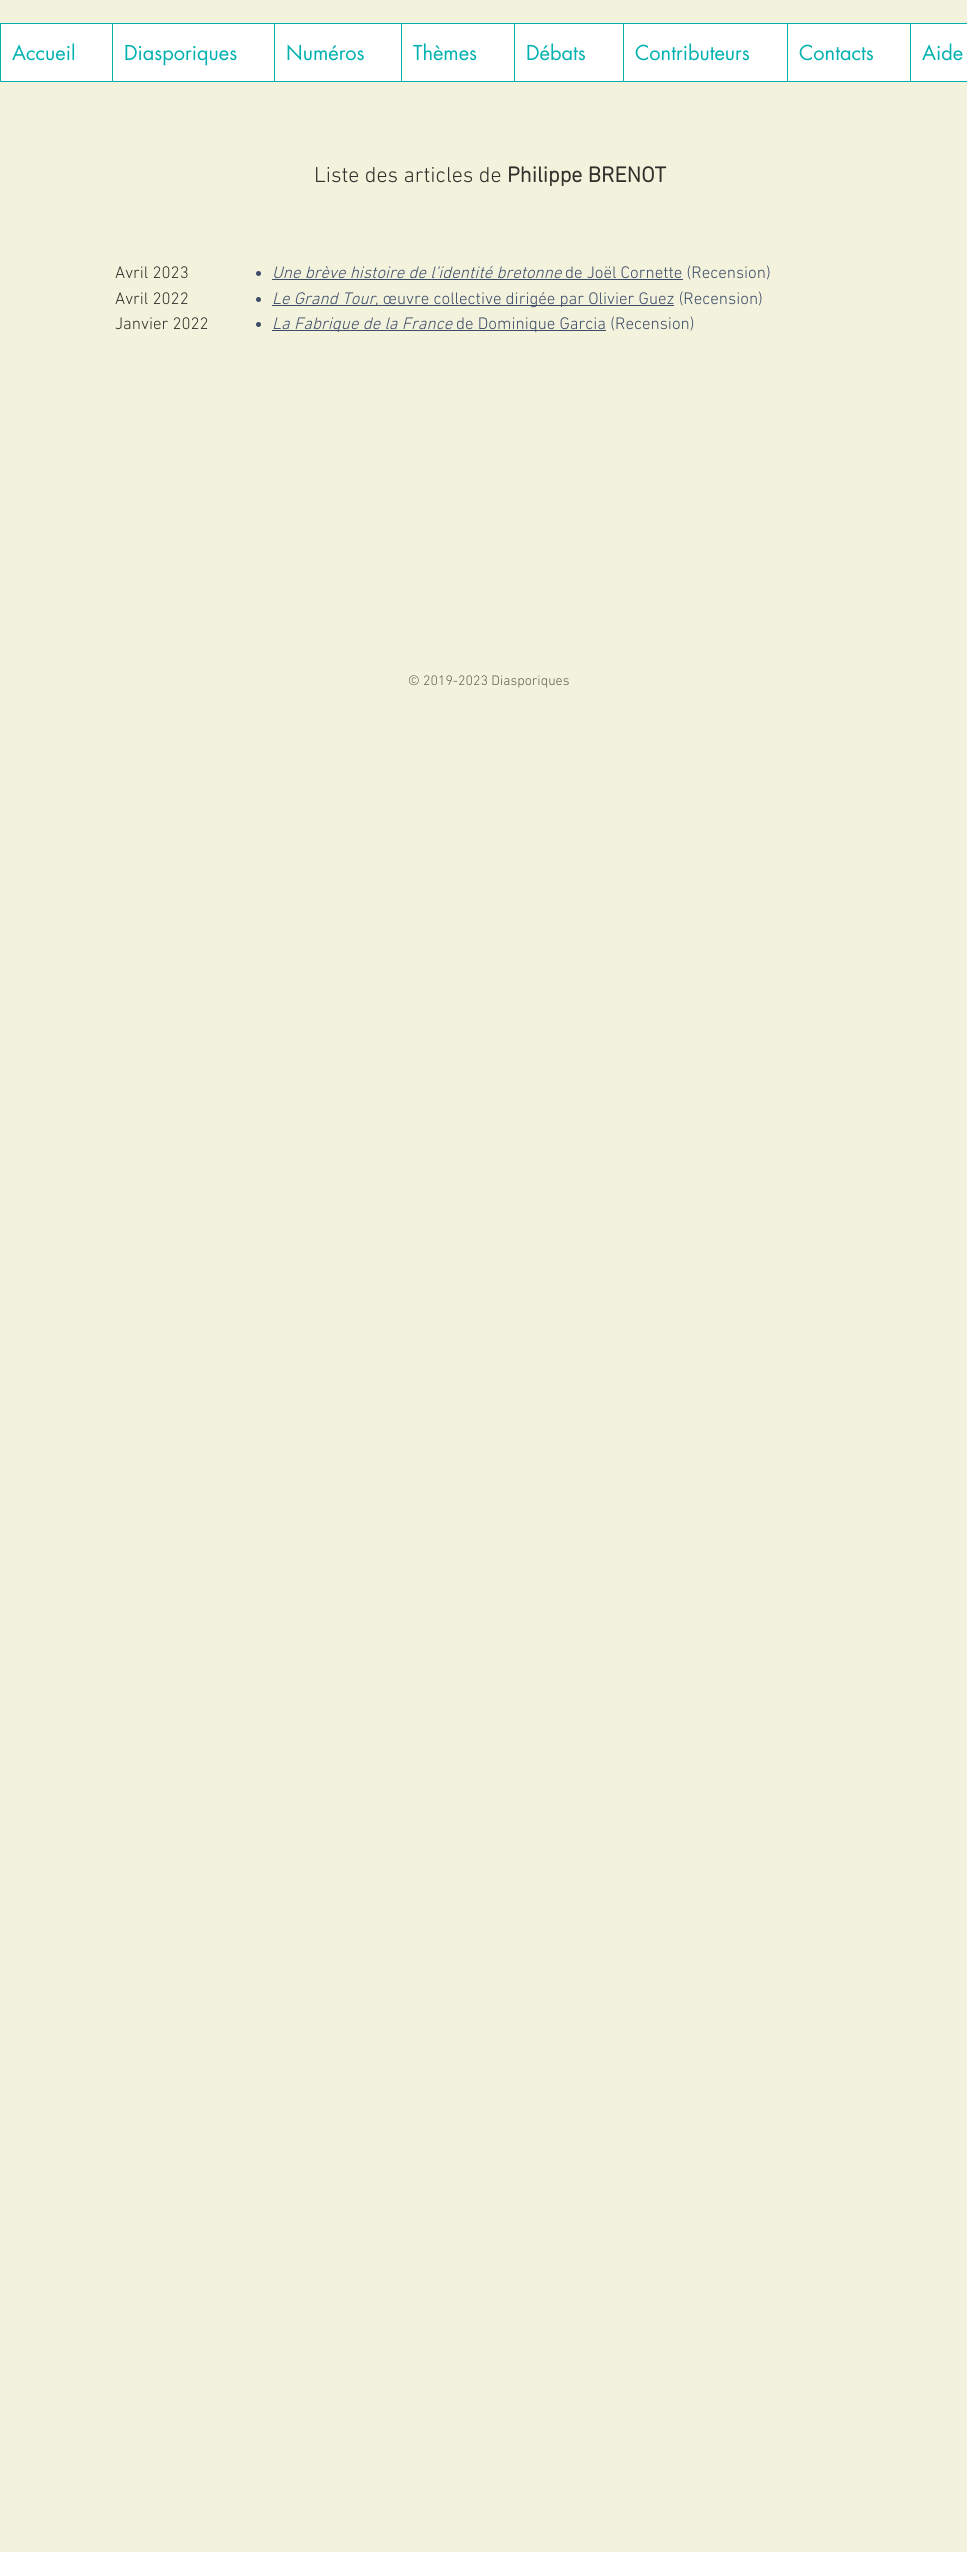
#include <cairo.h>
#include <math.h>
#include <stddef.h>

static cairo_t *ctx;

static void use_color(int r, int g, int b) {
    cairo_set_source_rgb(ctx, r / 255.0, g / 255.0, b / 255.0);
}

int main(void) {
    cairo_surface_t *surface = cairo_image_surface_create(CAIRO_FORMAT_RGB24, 967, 2552);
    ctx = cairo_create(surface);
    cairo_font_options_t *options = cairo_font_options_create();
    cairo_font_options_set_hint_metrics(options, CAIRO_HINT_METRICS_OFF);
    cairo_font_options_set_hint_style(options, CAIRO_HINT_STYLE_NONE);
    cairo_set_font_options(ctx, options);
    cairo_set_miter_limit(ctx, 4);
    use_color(243, 242, 220);
    cairo_paint(ctx);
    use_color(255, 255, 255);
    cairo_rectangle(ctx, 0.5, 23.5, 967, 58);
    cairo_fill_preserve(ctx);
    use_color(1, 177, 175);
    cairo_set_line_width(ctx, 1);
    cairo_stroke(ctx);
    cairo_select_font_face(ctx, "futura", CAIRO_FONT_SLANT_NORMAL, CAIRO_FONT_WEIGHT_NORMAL);
    cairo_set_font_size(ctx, 20);
    cairo_move_to(ctx, 12, 60);
    cairo_show_text(ctx, "Accueil");
    cairo_rectangle(ctx, 112, 24, 1, 57);
    cairo_fill(ctx);
    cairo_move_to(ctx, 124, 60);
    cairo_show_text(ctx, "Diasporiques");
    cairo_rectangle(ctx, 274, 24, 1, 57);
    cairo_fill(ctx);
    cairo_move_to(ctx, 286, 60);
    cairo_show_text(ctx, "Numéros");
    cairo_rectangle(ctx, 401, 24, 1, 57);
    cairo_fill(ctx);
    cairo_move_to(ctx, 413, 60);
    cairo_show_text(ctx, "Thèmes");
    cairo_rectangle(ctx, 514, 24, 1, 57);
    cairo_fill(ctx);
    cairo_move_to(ctx, 526, 60);
    cairo_show_text(ctx, "Débats");
    cairo_rectangle(ctx, 623, 24, 1, 57);
    cairo_fill(ctx);
    cairo_move_to(ctx, 635, 60);
    cairo_show_text(ctx, "Contributeurs");
    cairo_rectangle(ctx, 787, 24, 1, 57);
    cairo_fill(ctx);
    cairo_move_to(ctx, 799, 60);
    cairo_show_text(ctx, "Contacts");
    cairo_rectangle(ctx, 910, 24, 1, 57);
    cairo_fill(ctx);
    cairo_move_to(ctx, 922, 60);
    cairo_show_text(ctx, "Aide");
    cairo_select_font_face(ctx, "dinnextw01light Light", CAIRO_FONT_SLANT_NORMAL, CAIRO_FONT_WEIGHT_NORMAL);
    cairo_set_font_size(ctx, 22);
    use_color(49, 48, 44);
    cairo_move_to(ctx, 314, 182);
    cairo_show_text(ctx, "Liste des articles de");
    cairo_select_font_face(ctx, "dinnextw01light", CAIRO_FONT_SLANT_NORMAL, CAIRO_FONT_WEIGHT_BOLD);
    cairo_move_to(ctx, 507, 182);
    cairo_show_text(ctx, "Philippe BRENOT");
    cairo_select_font_face(ctx, "dinnextw01light Light", CAIRO_FONT_SLANT_NORMAL, CAIRO_FONT_WEIGHT_NORMAL);
    cairo_set_font_size(ctx, 17);
    cairo_move_to(ctx, 115, 278);
    cairo_show_text(ctx, "Avril 2023");
    cairo_move_to(ctx, 115, 304);
    cairo_show_text(ctx, "Avril 2022");
    cairo_move_to(ctx, 115, 329);
    cairo_show_text(ctx, "Janvier 2022");
    use_color(61, 77, 105);
    cairo_new_path(ctx);
    cairo_arc(ctx, 258.5, 273.5, 2.5, 0, 2 * M_PI);
    cairo_fill(ctx);
    cairo_select_font_face(ctx, "dinnextw01light Light", CAIRO_FONT_SLANT_ITALIC, CAIRO_FONT_WEIGHT_NORMAL);
    cairo_move_to(ctx, 272, 278);
    cairo_show_text(ctx, "Une brève histoire de l’identité bretonne");
    cairo_rectangle(ctx, 272, 279, 411, 1);
    cairo_fill(ctx);
    cairo_select_font_face(ctx, "dinnextw01light Light", CAIRO_FONT_SLANT_NORMAL, CAIRO_FONT_WEIGHT_NORMAL);
    cairo_move_to(ctx, 565, 278);
    cairo_show_text(ctx, "de Joël Cornette (Recension)");
    cairo_new_path(ctx);
    cairo_arc(ctx, 258.5, 299.5, 2.5, 0, 2 * M_PI);
    cairo_fill(ctx);
    cairo_select_font_face(ctx, "dinnextw01light Light", CAIRO_FONT_SLANT_ITALIC, CAIRO_FONT_WEIGHT_NORMAL);
    cairo_move_to(ctx, 272, 304);
    cairo_show_text(ctx, "Le Grand Tour");
    cairo_rectangle(ctx, 272, 305, 402, 1);
    cairo_fill(ctx);
    cairo_select_font_face(ctx, "dinnextw01light Light", CAIRO_FONT_SLANT_NORMAL, CAIRO_FONT_WEIGHT_NORMAL);
    cairo_move_to(ctx, 375, 304);
    cairo_show_text(ctx, ", œuvre collective dirigée par Olivier Guez (Recension)");
    cairo_new_path(ctx);
    cairo_arc(ctx, 258.5, 324.5, 2.5, 0, 2 * M_PI);
    cairo_fill(ctx);
    cairo_rectangle(ctx, 272, 330, 180, 1);
    cairo_fill(ctx);
    cairo_select_font_face(ctx, "dinnextw01light Light", CAIRO_FONT_SLANT_ITALIC, CAIRO_FONT_WEIGHT_NORMAL);
    cairo_move_to(ctx, 272, 329);
    cairo_show_text(ctx, "La Fabrique de la France");
    cairo_rectangle(ctx, 452, 330, 154, 1);
    cairo_fill(ctx);
    cairo_select_font_face(ctx, "dinnextw01light Light", CAIRO_FONT_SLANT_NORMAL, CAIRO_FONT_WEIGHT_NORMAL);
    cairo_move_to(ctx, 456, 329);
    cairo_show_text(ctx, "de Dominique Garcia (Recension)");
    cairo_set_font_size(ctx, 14);
    use_color(97, 97, 88);
    cairo_move_to(ctx, 408, 685);
    cairo_show_text(ctx, "© 2019-2023 Diasporiques");
    cairo_surface_write_to_png(surface, "result.png");
    cairo_font_options_destroy(options);
    cairo_destroy(ctx);
    cairo_surface_destroy(surface);
    return 0;
}
